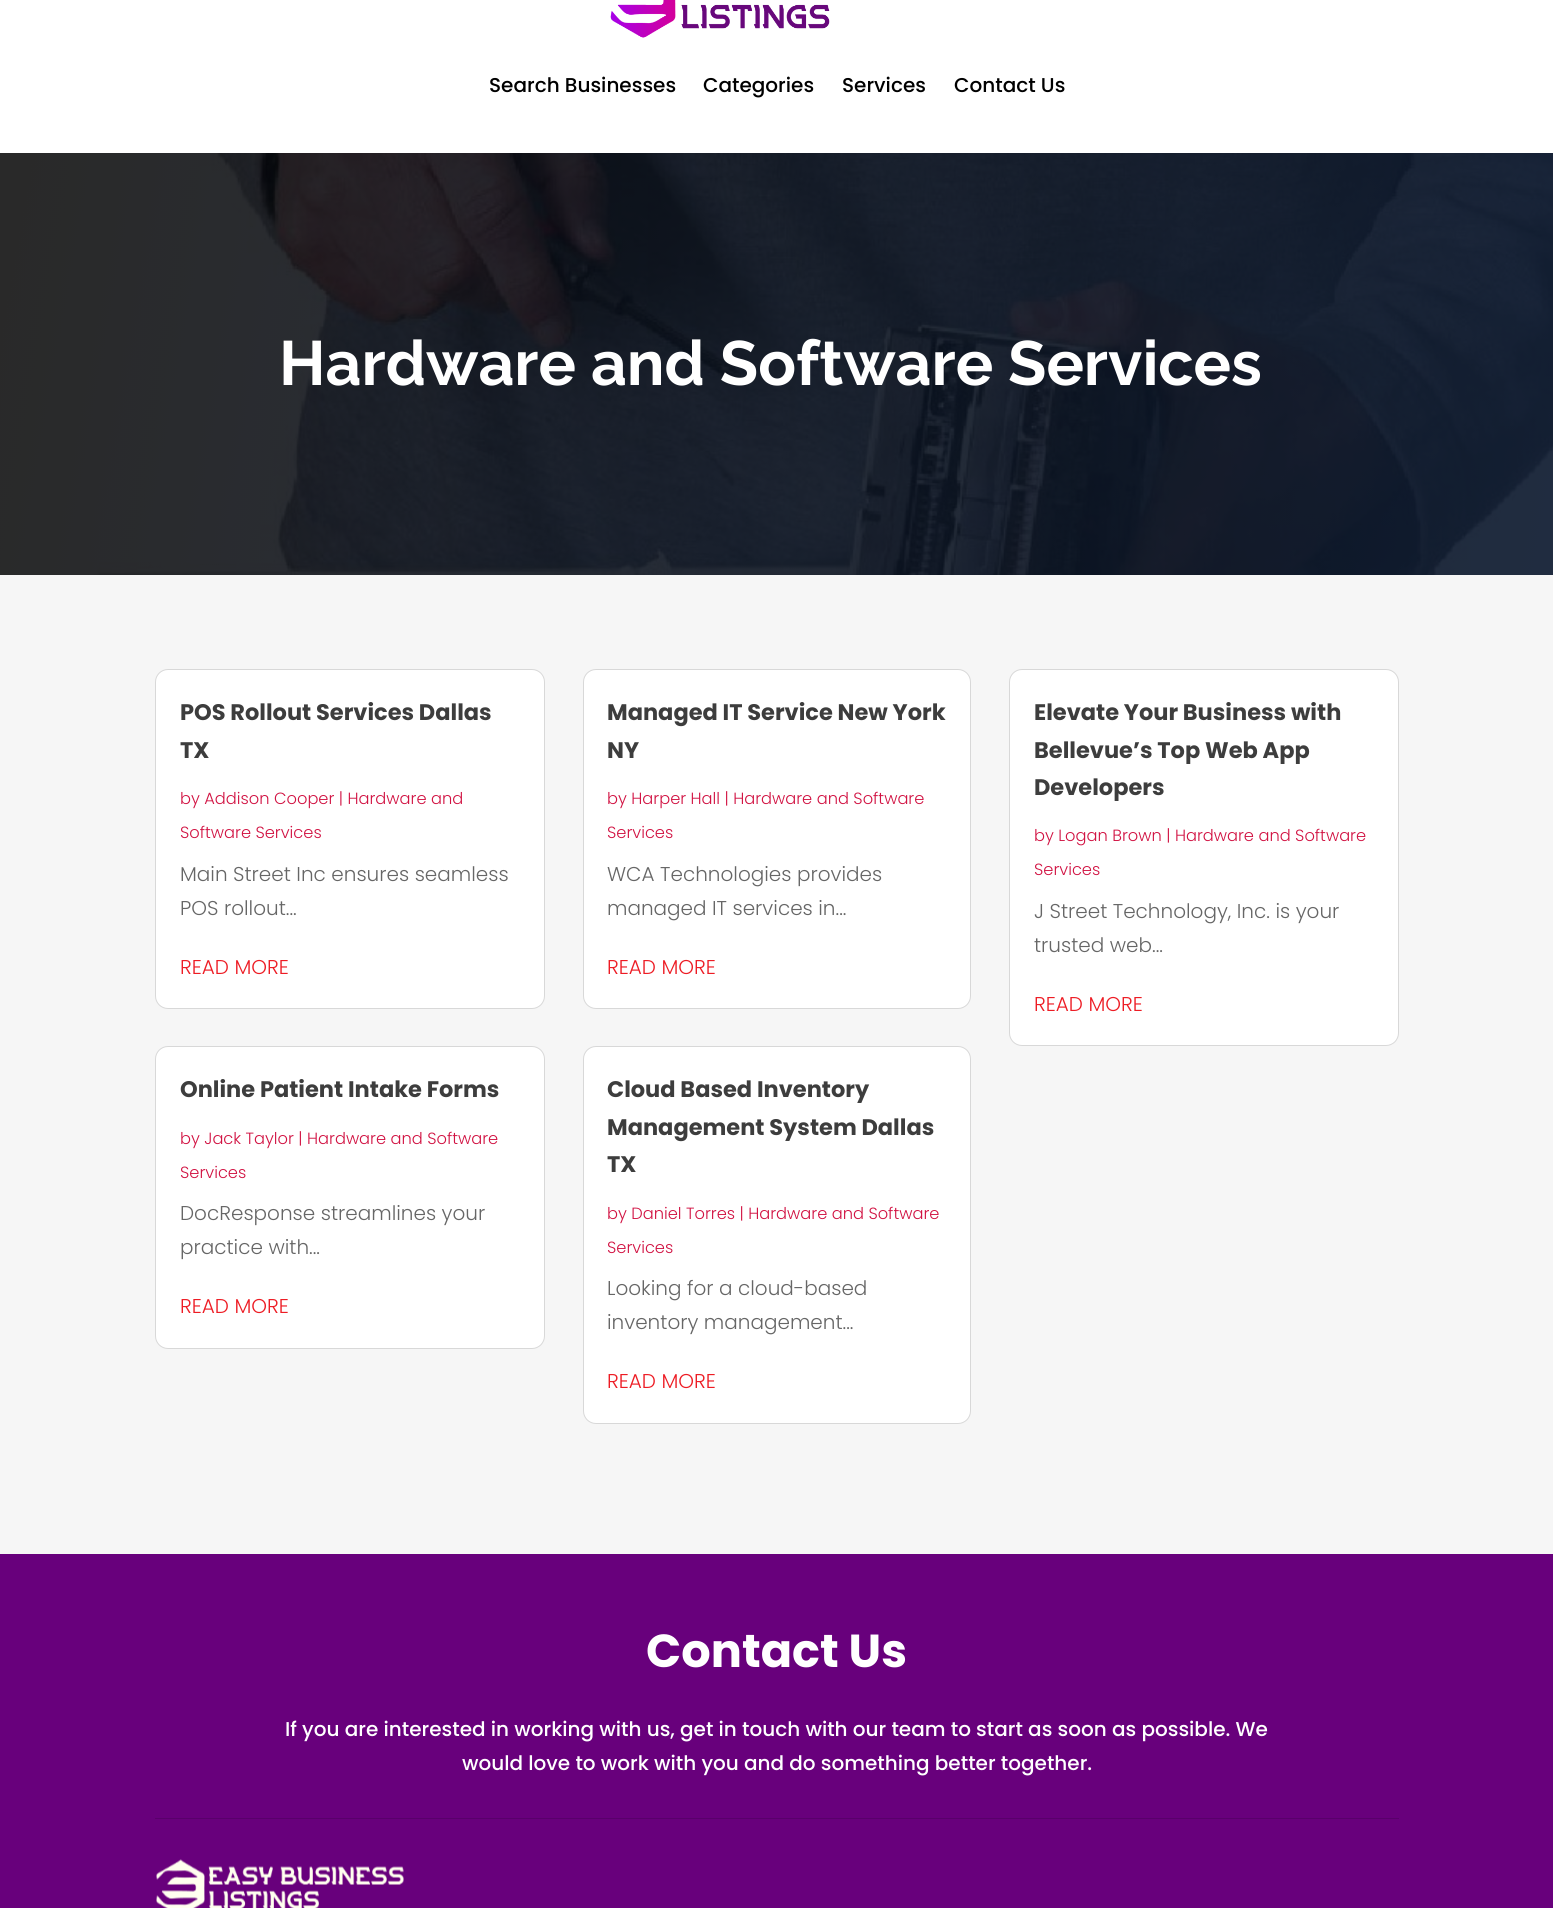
#include <cairo.h>
#include <math.h>
#include <stddef.h>

static cairo_t *ctx;

static void use_color(int r, int g, int b) {
    cairo_set_source_rgb(ctx, r / 255.0, g / 255.0, b / 255.0);
}

static void round_rect(double x, double y, double w, double h, double r) {
    cairo_new_sub_path(ctx);
    cairo_arc(ctx, x + w - r, y + h - r, r, 0, M_PI / 2);
    cairo_arc(ctx, x + r, y + h - r, r, M_PI / 2, M_PI);
    cairo_arc(ctx, x + r, y + r, r, M_PI, 1.5 * M_PI);
    cairo_arc(ctx, x + w - r, y + r, r, 1.5 * M_PI, 2 * M_PI);
    cairo_close_path(ctx);
}

static void picture(const char *path, double x, double y, double w, double h) {
    cairo_surface_t *image = cairo_image_surface_create_from_png(path);
    cairo_save(ctx);
    cairo_set_source_surface(ctx, image, x, y);
    cairo_rectangle(ctx, x, y, w, h);
    cairo_fill(ctx);
    cairo_restore(ctx);
    cairo_surface_destroy(image);
}

int main(void) {
    cairo_surface_t *surface = cairo_image_surface_create(CAIRO_FORMAT_RGB24, 1553, 1908);
    ctx = cairo_create(surface);
    cairo_font_options_t *options = cairo_font_options_create();
    cairo_font_options_set_hint_metrics(options, CAIRO_HINT_METRICS_OFF);
    cairo_font_options_set_hint_style(options, CAIRO_HINT_STYLE_NONE);
    cairo_set_font_options(ctx, options);
    cairo_set_miter_limit(ctx, 4);
    use_color(255, 255, 255);
    cairo_paint(ctx);
    picture("img1.png", 610, 0, 220, 38);
    cairo_select_font_face(ctx, "Poppins Medium", CAIRO_FONT_SLANT_NORMAL, CAIRO_FONT_WEIGHT_NORMAL);
    cairo_set_font_size(ctx, 20);
    use_color(0, 0, 0);
    cairo_move_to(ctx, 489, 92);
    cairo_show_text(ctx, "Search Businesses");
    cairo_move_to(ctx, 703, 92);
    cairo_show_text(ctx, "Categories");
    cairo_move_to(ctx, 842, 92);
    cairo_show_text(ctx, "Services");
    cairo_move_to(ctx, 954, 92);
    cairo_show_text(ctx, "Contact Us");
    picture("img2.png", 0, 153, 1553, 422);
    cairo_select_font_face(ctx, "Raleway", CAIRO_FONT_SLANT_NORMAL, CAIRO_FONT_WEIGHT_BOLD);
    cairo_set_font_size(ctx, 62.5);
    use_color(255, 255, 255);
    cairo_move_to(ctx, 279, 385);
    cairo_show_text(ctx, "Hardware and Software Services");
    use_color(246, 246, 246);
    cairo_rectangle(ctx, 0, 575, 1553, 979);
    cairo_fill(ctx);
    use_color(255, 255, 255);
    round_rect(155.5, 669.5, 389, 339, 12.5);
    cairo_fill_preserve(ctx);
    use_color(216, 216, 216);
    cairo_set_line_width(ctx, 1);
    cairo_stroke(ctx);
    cairo_select_font_face(ctx, "Poppins", CAIRO_FONT_SLANT_NORMAL, CAIRO_FONT_WEIGHT_BOLD);
    cairo_set_font_size(ctx, 22.5);
    use_color(61, 61, 61);
    cairo_move_to(ctx, 180, 720);
    cairo_show_text(ctx, "POS Rollout Services Dallas");
    cairo_move_to(ctx, 180, 758);
    cairo_show_text(ctx, "TX");
    cairo_select_font_face(ctx, "Poppins Light", CAIRO_FONT_SLANT_NORMAL, CAIRO_FONT_WEIGHT_NORMAL);
    cairo_set_font_size(ctx, 16.25);
    use_color(209, 18, 66);
    cairo_move_to(ctx, 180, 804);
    cairo_show_text(ctx, "by Addison Cooper | Hardware and");
    cairo_move_to(ctx, 180, 838);
    cairo_show_text(ctx, "Software Services");
    cairo_set_font_size(ctx, 20);
    use_color(102, 102, 102);
    cairo_move_to(ctx, 180, 881);
    cairo_show_text(ctx, "Main Street Inc ensures seamless");
    cairo_move_to(ctx, 180, 915);
    cairo_show_text(ctx, "POS rollout...");
    use_color(237, 28, 36);
    cairo_move_to(ctx, 180, 974);
    cairo_show_text(ctx, "READ MORE");
    use_color(255, 255, 255);
    round_rect(155.5, 1046.5, 389, 302, 12.5);
    cairo_fill_preserve(ctx);
    use_color(216, 216, 216);
    cairo_stroke(ctx);
    cairo_select_font_face(ctx, "Poppins", CAIRO_FONT_SLANT_NORMAL, CAIRO_FONT_WEIGHT_BOLD);
    cairo_set_font_size(ctx, 22.5);
    use_color(61, 61, 61);
    cairo_move_to(ctx, 180, 1097);
    cairo_show_text(ctx, "Online Patient Intake Forms");
    cairo_select_font_face(ctx, "Poppins Light", CAIRO_FONT_SLANT_NORMAL, CAIRO_FONT_WEIGHT_NORMAL);
    cairo_set_font_size(ctx, 16.25);
    use_color(209, 18, 66);
    cairo_move_to(ctx, 180, 1144);
    cairo_show_text(ctx, "by Jack Taylor | Hardware and Software");
    cairo_move_to(ctx, 180, 1178);
    cairo_show_text(ctx, "Services");
    cairo_set_font_size(ctx, 20);
    use_color(102, 102, 102);
    cairo_move_to(ctx, 180, 1220);
    cairo_show_text(ctx, "DocResponse streamlines your");
    cairo_move_to(ctx, 180, 1254);
    cairo_show_text(ctx, "practice with...");
    use_color(237, 28, 36);
    cairo_move_to(ctx, 180, 1313);
    cairo_show_text(ctx, "READ MORE");
    use_color(255, 255, 255);
    round_rect(583.5, 669.5, 387, 339, 12.5);
    cairo_fill_preserve(ctx);
    use_color(216, 216, 216);
    cairo_stroke(ctx);
    cairo_select_font_face(ctx, "Poppins", CAIRO_FONT_SLANT_NORMAL, CAIRO_FONT_WEIGHT_BOLD);
    cairo_set_font_size(ctx, 22.5);
    use_color(61, 61, 61);
    cairo_move_to(ctx, 607, 720);
    cairo_show_text(ctx, "Managed IT Service New York");
    cairo_move_to(ctx, 607, 758);
    cairo_show_text(ctx, "NY");
    cairo_select_font_face(ctx, "Poppins Light", CAIRO_FONT_SLANT_NORMAL, CAIRO_FONT_WEIGHT_NORMAL);
    cairo_set_font_size(ctx, 16.25);
    use_color(209, 18, 66);
    cairo_move_to(ctx, 607, 804);
    cairo_show_text(ctx, "by Harper Hall | Hardware and Software");
    cairo_move_to(ctx, 607, 838);
    cairo_show_text(ctx, "Services");
    cairo_set_font_size(ctx, 20);
    use_color(102, 102, 102);
    cairo_move_to(ctx, 607, 881);
    cairo_show_text(ctx, "WCA Technologies provides");
    cairo_move_to(ctx, 607, 915);
    cairo_show_text(ctx, "managed IT services in...");
    use_color(237, 28, 36);
    cairo_move_to(ctx, 607, 974);
    cairo_show_text(ctx, "READ MORE");
    use_color(255, 255, 255);
    round_rect(583.5, 1046.5, 387, 377, 12.5);
    cairo_fill_preserve(ctx);
    use_color(216, 216, 216);
    cairo_stroke(ctx);
    cairo_select_font_face(ctx, "Poppins", CAIRO_FONT_SLANT_NORMAL, CAIRO_FONT_WEIGHT_BOLD);
    cairo_set_font_size(ctx, 22.5);
    use_color(61, 61, 61);
    cairo_move_to(ctx, 607, 1097);
    cairo_show_text(ctx, "Cloud Based Inventory");
    cairo_move_to(ctx, 607, 1135);
    cairo_show_text(ctx, "Management System Dallas");
    cairo_move_to(ctx, 607, 1172);
    cairo_show_text(ctx, "TX");
    cairo_select_font_face(ctx, "Poppins Light", CAIRO_FONT_SLANT_NORMAL, CAIRO_FONT_WEIGHT_NORMAL);
    cairo_set_font_size(ctx, 16.25);
    use_color(209, 18, 66);
    cairo_move_to(ctx, 607, 1219);
    cairo_show_text(ctx, "by Daniel Torres | Hardware and Software");
    cairo_move_to(ctx, 607, 1253);
    cairo_show_text(ctx, "Services");
    cairo_set_font_size(ctx, 20);
    use_color(102, 102, 102);
    cairo_move_to(ctx, 607, 1295);
    cairo_show_text(ctx, "Looking for a cloud-based");
    cairo_move_to(ctx, 607, 1329);
    cairo_show_text(ctx, "inventory management...");
    use_color(237, 28, 36);
    cairo_move_to(ctx, 607, 1388);
    cairo_show_text(ctx, "READ MORE");
    use_color(255, 255, 255);
    round_rect(1009.5, 669.5, 389, 376, 12.5);
    cairo_fill_preserve(ctx);
    use_color(216, 216, 216);
    cairo_stroke(ctx);
    cairo_select_font_face(ctx, "Poppins", CAIRO_FONT_SLANT_NORMAL, CAIRO_FONT_WEIGHT_BOLD);
    cairo_set_font_size(ctx, 22.5);
    use_color(61, 61, 61);
    cairo_move_to(ctx, 1034, 720);
    cairo_show_text(ctx, "Elevate Your Business with");
    cairo_move_to(ctx, 1034, 758);
    cairo_show_text(ctx, "Bellevue’s Top Web App");
    cairo_move_to(ctx, 1034, 795);
    cairo_show_text(ctx, "Developers");
    cairo_select_font_face(ctx, "Poppins Light", CAIRO_FONT_SLANT_NORMAL, CAIRO_FONT_WEIGHT_NORMAL);
    cairo_set_font_size(ctx, 16.25);
    use_color(209, 18, 66);
    cairo_move_to(ctx, 1034, 841);
    cairo_show_text(ctx, "by Logan Brown | Hardware and Software");
    cairo_move_to(ctx, 1034, 875);
    cairo_show_text(ctx, "Services");
    cairo_set_font_size(ctx, 20);
    use_color(102, 102, 102);
    cairo_move_to(ctx, 1034, 918);
    cairo_show_text(ctx, "J Street Technology, Inc. is your");
    cairo_move_to(ctx, 1034, 952);
    cairo_show_text(ctx, "trusted web...");
    use_color(237, 28, 36);
    cairo_move_to(ctx, 1034, 1011);
    cairo_show_text(ctx, "READ MORE");
    use_color(104, 0, 124);
    cairo_rectangle(ctx, 0, 1554, 1553, 354);
    cairo_fill(ctx);
    use_color(89, 0, 107);
    cairo_rectangle(ctx, 155, 1818, 1244, 1);
    cairo_fill(ctx);
    cairo_select_font_face(ctx, "Poppins", CAIRO_FONT_SLANT_NORMAL, CAIRO_FONT_WEIGHT_BOLD);
    cairo_set_font_size(ctx, 46.25);
    use_color(255, 255, 255);
    cairo_move_to(ctx, 646, 1667);
    cairo_show_text(ctx, "Contact Us");
    cairo_select_font_face(ctx, "Poppins Medium", CAIRO_FONT_SLANT_NORMAL, CAIRO_FONT_WEIGHT_NORMAL);
    cairo_set_font_size(ctx, 20);
    cairo_move_to(ctx, 285, 1736);
    cairo_show_text(ctx, "If you are interested in working with us, get in touch with our team to start as soon as possible. We");
    cairo_move_to(ctx, 462, 1770);
    cairo_show_text(ctx, "would love to work with you and do something better together.");
    picture("img3.png", 156, 1859, 248, 49);
    cairo_surface_write_to_png(surface, "result.png");
    cairo_font_options_destroy(options);
    cairo_destroy(ctx);
    cairo_surface_destroy(surface);
    return 0;
}
